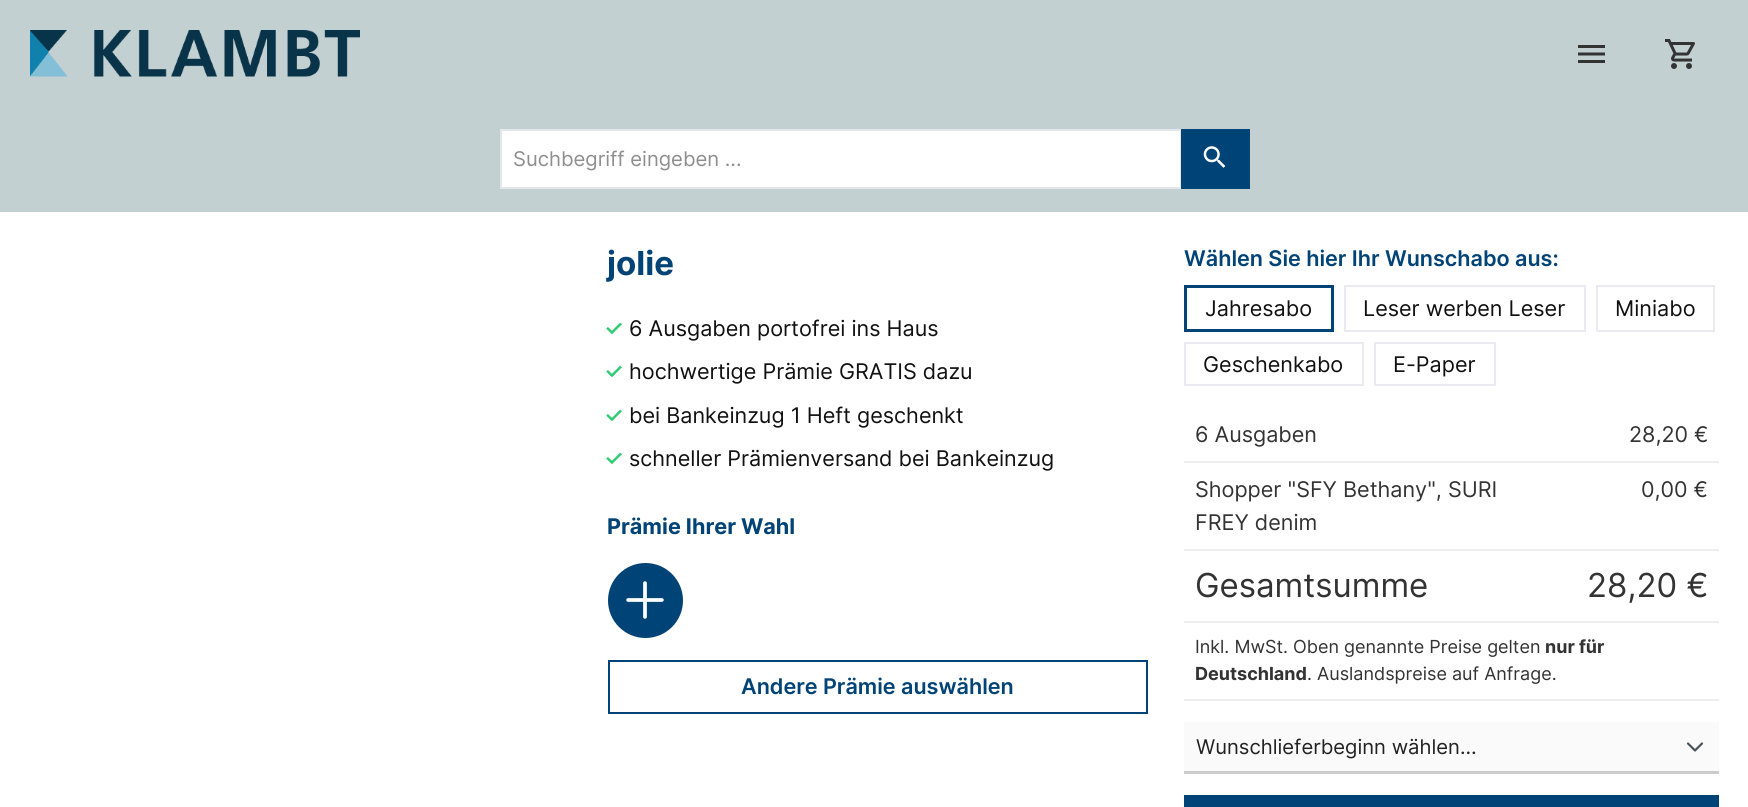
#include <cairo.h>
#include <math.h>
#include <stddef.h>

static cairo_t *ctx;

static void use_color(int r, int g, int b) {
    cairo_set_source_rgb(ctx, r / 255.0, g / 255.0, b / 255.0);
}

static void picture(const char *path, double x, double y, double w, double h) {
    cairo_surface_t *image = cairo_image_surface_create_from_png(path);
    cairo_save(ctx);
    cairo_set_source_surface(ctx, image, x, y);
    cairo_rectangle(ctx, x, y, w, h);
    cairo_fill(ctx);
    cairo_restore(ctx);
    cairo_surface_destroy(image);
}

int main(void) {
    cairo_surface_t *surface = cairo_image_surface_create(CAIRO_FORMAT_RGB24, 1748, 807);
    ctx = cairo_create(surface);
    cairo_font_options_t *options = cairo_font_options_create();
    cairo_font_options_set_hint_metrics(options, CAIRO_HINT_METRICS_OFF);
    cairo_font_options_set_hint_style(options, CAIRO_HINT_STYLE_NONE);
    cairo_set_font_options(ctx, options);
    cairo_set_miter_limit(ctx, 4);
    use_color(255, 255, 255);
    cairo_paint(ctx);
    use_color(195, 208, 209);
    cairo_rectangle(ctx, 0, 0, 1748, 212);
    cairo_fill(ctx);
    picture("img1.png", 30, 30, 330, 47);
    picture("img2.png", 1578, 45, 27, 18);
    picture("img3.png", 1665, 39, 30, 30);
    use_color(255, 255, 255);
    cairo_rectangle(ctx, 501, 130, 680, 58);
    cairo_fill_preserve(ctx);
    use_color(228, 231, 234);
    cairo_stroke(ctx);
    cairo_select_font_face(ctx, "Inter", CAIRO_FONT_SLANT_NORMAL, CAIRO_FONT_WEIGHT_NORMAL);
    cairo_set_font_size(ctx, 20.25);
    use_color(142, 142, 142);
    cairo_move_to(ctx, 513, 166);
    cairo_show_text(ctx, "Suchbegriff eingeben ...");
    use_color(0, 67, 118);
    cairo_rectangle(ctx, 1181, 129, 69, 60);
    cairo_fill(ctx);
    picture("img4.png", 1203, 146, 23, 22);
    cairo_select_font_face(ctx, "Inter", CAIRO_FONT_SLANT_NORMAL, CAIRO_FONT_WEIGHT_BOLD);
    cairo_set_font_size(ctx, 33);
    cairo_move_to(ctx, 607, 275);
    cairo_show_text(ctx, "jolie");
    cairo_select_font_face(ctx, "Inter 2", CAIRO_FONT_SLANT_NORMAL, CAIRO_FONT_WEIGHT_BOLD);
    cairo_set_font_size(ctx, 21.6);
    use_color(46, 204, 113);
    cairo_move_to(ctx, 604, 336);
    cairo_show_text(ctx, "✓");
    cairo_select_font_face(ctx, "Inter", CAIRO_FONT_SLANT_NORMAL, CAIRO_FONT_WEIGHT_NORMAL);
    use_color(17, 17, 17);
    cairo_move_to(ctx, 629, 336);
    cairo_show_text(ctx, "6 Ausgaben portofrei ins Haus");
    cairo_select_font_face(ctx, "Inter 2", CAIRO_FONT_SLANT_NORMAL, CAIRO_FONT_WEIGHT_BOLD);
    use_color(46, 204, 113);
    cairo_move_to(ctx, 604, 379);
    cairo_show_text(ctx, "✓");
    cairo_select_font_face(ctx, "Inter", CAIRO_FONT_SLANT_NORMAL, CAIRO_FONT_WEIGHT_NORMAL);
    use_color(17, 17, 17);
    cairo_move_to(ctx, 629, 379);
    cairo_show_text(ctx, "hochwertige Prämie GRATIS dazu");
    cairo_select_font_face(ctx, "Inter 2", CAIRO_FONT_SLANT_NORMAL, CAIRO_FONT_WEIGHT_BOLD);
    use_color(46, 204, 113);
    cairo_move_to(ctx, 604, 423);
    cairo_show_text(ctx, "✓");
    cairo_select_font_face(ctx, "Inter", CAIRO_FONT_SLANT_NORMAL, CAIRO_FONT_WEIGHT_NORMAL);
    use_color(17, 17, 17);
    cairo_move_to(ctx, 629, 423);
    cairo_show_text(ctx, "bei Bankeinzug 1 Heft geschenkt");
    cairo_select_font_face(ctx, "Inter 2", CAIRO_FONT_SLANT_NORMAL, CAIRO_FONT_WEIGHT_BOLD);
    use_color(46, 204, 113);
    cairo_move_to(ctx, 604, 466);
    cairo_show_text(ctx, "✓");
    cairo_select_font_face(ctx, "Inter", CAIRO_FONT_SLANT_NORMAL, CAIRO_FONT_WEIGHT_NORMAL);
    use_color(17, 17, 17);
    cairo_move_to(ctx, 629, 466);
    cairo_show_text(ctx, "schneller Prämienversand bei Bankeinzug");
    cairo_select_font_face(ctx, "Inter", CAIRO_FONT_SLANT_NORMAL, CAIRO_FONT_WEIGHT_BOLD);
    use_color(0, 67, 118);
    cairo_move_to(ctx, 607, 534);
    cairo_show_text(ctx, "Prämie Ihrer Wahl");
    cairo_new_path(ctx);
    cairo_arc(ctx, 645.5, 600.5, 37.5, 0, 2 * M_PI);
    cairo_fill(ctx);
    picture("img5.png", 626, 581, 38, 38);
    cairo_rectangle(ctx, 609, 661, 538, 52);
    cairo_stroke(ctx);
    cairo_select_font_face(ctx, "Inter SemiBold", CAIRO_FONT_SLANT_NORMAL, CAIRO_FONT_WEIGHT_NORMAL);
    cairo_move_to(ctx, 741, 694);
    cairo_show_text(ctx, "Andere Prämie auswählen");
    cairo_move_to(ctx, 1184, 266);
    cairo_show_text(ctx, "Wählen Sie hier Ihr Wunschabo aus:");
    cairo_rectangle(ctx, 1185.5, 286.5, 147, 44);
    cairo_set_line_width(ctx, 3);
    cairo_stroke(ctx);
    cairo_select_font_face(ctx, "Inter", CAIRO_FONT_SLANT_NORMAL, CAIRO_FONT_WEIGHT_NORMAL);
    use_color(17, 17, 17);
    cairo_move_to(ctx, 1205, 316);
    cairo_show_text(ctx, "Jahresabo");
    cairo_rectangle(ctx, 1345, 286, 240, 45);
    use_color(234, 234, 240);
    cairo_set_line_width(ctx, 2);
    cairo_stroke(ctx);
    use_color(17, 17, 17);
    cairo_move_to(ctx, 1363, 316);
    cairo_show_text(ctx, "Leser werben Leser");
    cairo_rectangle(ctx, 1597, 286, 117, 45);
    use_color(234, 234, 240);
    cairo_stroke(ctx);
    use_color(17, 17, 17);
    cairo_move_to(ctx, 1615, 316);
    cairo_show_text(ctx, "Miniabo");
    cairo_rectangle(ctx, 1185, 343, 178, 42);
    use_color(234, 234, 240);
    cairo_stroke(ctx);
    use_color(17, 17, 17);
    cairo_move_to(ctx, 1203, 372);
    cairo_show_text(ctx, "Geschenkabo");
    cairo_rectangle(ctx, 1375, 343, 120, 42);
    use_color(234, 234, 240);
    cairo_stroke(ctx);
    use_color(17, 17, 17);
    cairo_move_to(ctx, 1393, 372);
    cairo_show_text(ctx, "E-Paper");
    use_color(51, 51, 51);
    cairo_move_to(ctx, 1195, 442);
    cairo_show_text(ctx, "6 Ausgaben");
    use_color(238, 238, 238);
    cairo_rectangle(ctx, 1184, 461, 535, 2);
    cairo_fill(ctx);
    use_color(51, 51, 51);
    cairo_move_to(ctx, 1629, 442);
    cairo_show_text(ctx, "28,20 €");
    cairo_move_to(ctx, 1195, 497);
    cairo_show_text(ctx, "Shopper \"SFY Bethany\", SURI");
    cairo_move_to(ctx, 1195, 530);
    cairo_show_text(ctx, "FREY denim");
    use_color(238, 238, 238);
    cairo_rectangle(ctx, 1184, 549, 535, 2);
    cairo_fill(ctx);
    use_color(51, 51, 51);
    cairo_move_to(ctx, 1641, 497);
    cairo_show_text(ctx, "0,00 €");
    cairo_set_font_size(ctx, 33);
    cairo_move_to(ctx, 1195, 597);
    cairo_show_text(ctx, "Gesamtsumme");
    use_color(238, 238, 238);
    cairo_rectangle(ctx, 1184, 621, 535, 2);
    cairo_fill(ctx);
    use_color(51, 51, 51);
    cairo_move_to(ctx, 1587, 597);
    cairo_show_text(ctx, "28,20 €");
    use_color(238, 238, 238);
    cairo_rectangle(ctx, 1184, 699, 535, 2);
    cairo_fill(ctx);
    cairo_set_font_size(ctx, 18);
    use_color(51, 51, 51);
    cairo_move_to(ctx, 1195, 653);
    cairo_show_text(ctx, "Inkl. MwSt. Oben genannte Preise gelten");
    cairo_select_font_face(ctx, "Inter", CAIRO_FONT_SLANT_NORMAL, CAIRO_FONT_WEIGHT_BOLD);
    cairo_move_to(ctx, 1545, 653);
    cairo_show_text(ctx, "nur für");
    cairo_move_to(ctx, 1195, 680);
    cairo_show_text(ctx, "Deutschland");
    cairo_select_font_face(ctx, "Inter", CAIRO_FONT_SLANT_NORMAL, CAIRO_FONT_WEIGHT_NORMAL);
    cairo_move_to(ctx, 1307, 680);
    cairo_show_text(ctx, ". Auslandspreise auf Anfrage.");
    use_color(250, 250, 250);
    cairo_rectangle(ctx, 1184, 722, 535, 49);
    cairo_fill(ctx);
    cairo_new_path(ctx);
    cairo_move_to(ctx, 1688, 743.5);
    cairo_line_to(ctx, 1695, 750.5);
    cairo_line_to(ctx, 1702, 743.5);
    use_color(74, 84, 91);
    cairo_set_line_width(ctx, 2.2);
    cairo_set_line_cap(ctx, CAIRO_LINE_CAP_ROUND);
    cairo_set_line_join(ctx, CAIRO_LINE_JOIN_ROUND);
    cairo_stroke(ctx);
    use_color(204, 204, 204);
    cairo_rectangle(ctx, 1184, 771, 535, 3);
    cairo_fill(ctx);
    cairo_set_font_size(ctx, 20.25);
    use_color(34, 34, 34);
    cairo_move_to(ctx, 1196, 754);
    cairo_show_text(ctx, "Wunschlieferbeginn wählen…");
    use_color(0, 67, 118);
    cairo_rectangle(ctx, 1184, 795, 535, 12);
    cairo_fill(ctx);
    cairo_surface_write_to_png(surface, "result.png");
    cairo_font_options_destroy(options);
    cairo_destroy(ctx);
    cairo_surface_destroy(surface);
    return 0;
}
